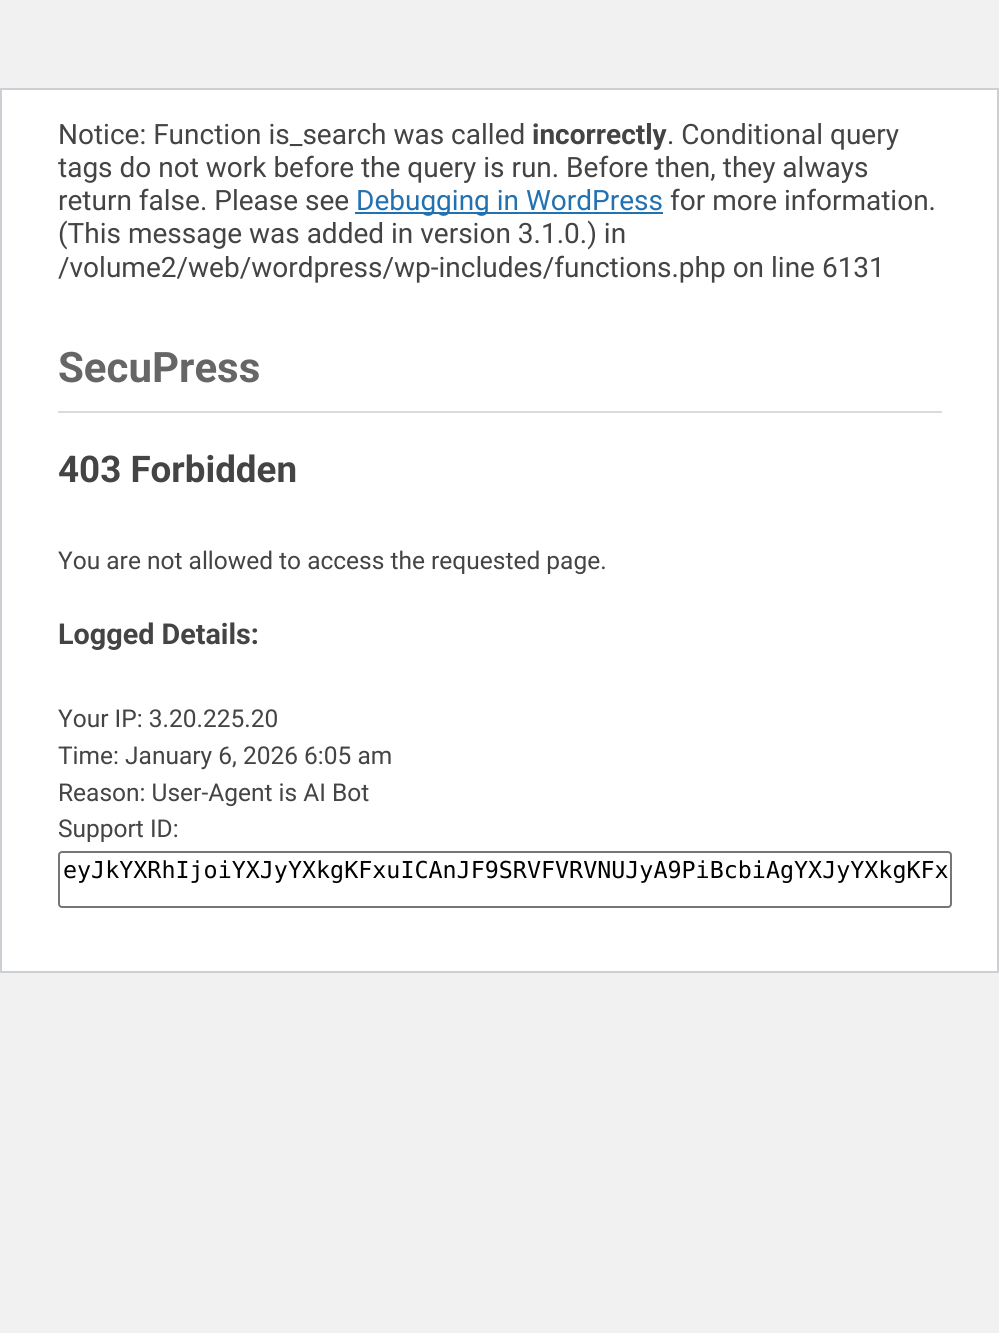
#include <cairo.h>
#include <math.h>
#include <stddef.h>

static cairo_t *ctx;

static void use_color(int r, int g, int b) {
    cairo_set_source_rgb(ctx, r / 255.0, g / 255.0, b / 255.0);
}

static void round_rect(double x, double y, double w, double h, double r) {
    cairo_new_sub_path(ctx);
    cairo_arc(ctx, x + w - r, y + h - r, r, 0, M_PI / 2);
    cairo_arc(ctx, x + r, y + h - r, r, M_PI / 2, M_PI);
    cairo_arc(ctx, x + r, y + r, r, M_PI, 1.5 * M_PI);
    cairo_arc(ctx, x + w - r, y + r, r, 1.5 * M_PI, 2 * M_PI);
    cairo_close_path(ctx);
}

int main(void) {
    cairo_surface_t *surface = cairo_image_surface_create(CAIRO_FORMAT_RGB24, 999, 1333);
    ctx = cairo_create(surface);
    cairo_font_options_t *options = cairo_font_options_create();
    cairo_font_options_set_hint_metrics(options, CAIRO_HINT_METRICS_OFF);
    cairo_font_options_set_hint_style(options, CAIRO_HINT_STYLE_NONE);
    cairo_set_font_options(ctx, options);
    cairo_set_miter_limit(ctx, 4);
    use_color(241, 241, 241);
    cairo_paint(ctx);
    use_color(255, 255, 255);
    cairo_rectangle(ctx, 1, 89, 997, 883);
    cairo_fill_preserve(ctx);
    use_color(204, 208, 212);
    cairo_stroke(ctx);
    cairo_select_font_face(ctx, "Roboto", CAIRO_FONT_SLANT_NORMAL, CAIRO_FONT_WEIGHT_NORMAL);
    cairo_set_font_size(ctx, 28);
    use_color(68, 68, 68);
    cairo_move_to(ctx, 58, 144);
    cairo_show_text(ctx, "Notice: Function is_search was called");
    cairo_select_font_face(ctx, "Roboto", CAIRO_FONT_SLANT_NORMAL, CAIRO_FONT_WEIGHT_BOLD);
    cairo_move_to(ctx, 532, 144);
    cairo_show_text(ctx, "incorrectly");
    cairo_select_font_face(ctx, "Roboto", CAIRO_FONT_SLANT_NORMAL, CAIRO_FONT_WEIGHT_NORMAL);
    cairo_move_to(ctx, 667, 144);
    cairo_show_text(ctx, ". Conditional query");
    cairo_move_to(ctx, 58, 177);
    cairo_show_text(ctx, "tags do not work before the query is run. Before then, they always");
    cairo_move_to(ctx, 58, 210);
    cairo_show_text(ctx, "return false. Please see");
    use_color(34, 113, 177);
    cairo_rectangle(ctx, 355, 212, 308, 2);
    cairo_fill(ctx);
    cairo_move_to(ctx, 356, 210);
    cairo_show_text(ctx, "Debugging in WordPress");
    use_color(68, 68, 68);
    cairo_move_to(ctx, 670, 210);
    cairo_show_text(ctx, "for more information.");
    cairo_move_to(ctx, 58, 243);
    cairo_show_text(ctx, "(This message was added in version 3.1.0.) in");
    cairo_move_to(ctx, 58, 277);
    cairo_show_text(ctx, "/volume2/web/wordpress/wp-includes/functions.php on line 6131");
    use_color(218, 218, 218);
    cairo_rectangle(ctx, 58, 411, 884, 2);
    cairo_fill(ctx);
    cairo_select_font_face(ctx, "Roboto", CAIRO_FONT_SLANT_NORMAL, CAIRO_FONT_WEIGHT_BOLD);
    cairo_set_font_size(ctx, 42);
    use_color(102, 102, 102);
    cairo_move_to(ctx, 58, 382);
    cairo_show_text(ctx, "SecuPress");
    cairo_set_font_size(ctx, 36.75);
    use_color(68, 68, 68);
    cairo_move_to(ctx, 58, 482);
    cairo_show_text(ctx, "403 Forbidden");
    cairo_select_font_face(ctx, "Roboto", CAIRO_FONT_SLANT_NORMAL, CAIRO_FONT_WEIGHT_NORMAL);
    cairo_set_font_size(ctx, 24.5);
    cairo_move_to(ctx, 58, 569);
    cairo_show_text(ctx, "You are not allowed to access the requested page.");
    cairo_select_font_face(ctx, "Roboto", CAIRO_FONT_SLANT_NORMAL, CAIRO_FONT_WEIGHT_BOLD);
    cairo_set_font_size(ctx, 28.75);
    cairo_move_to(ctx, 58, 644);
    cairo_show_text(ctx, "Logged Details:");
    cairo_select_font_face(ctx, "Roboto", CAIRO_FONT_SLANT_NORMAL, CAIRO_FONT_WEIGHT_NORMAL);
    cairo_set_font_size(ctx, 24.5);
    cairo_move_to(ctx, 58, 727);
    cairo_show_text(ctx, "Your IP: 3.20.225.20");
    cairo_move_to(ctx, 58, 764);
    cairo_show_text(ctx, "Time: January 6, 2026 6:05 am");
    cairo_move_to(ctx, 58, 801);
    cairo_show_text(ctx, "Reason: User-Agent is AI Bot");
    cairo_move_to(ctx, 58, 837);
    cairo_show_text(ctx, "Support ID:");
    round_rect(59, 852, 892, 55, 3);
    use_color(118, 118, 118);
    cairo_stroke(ctx);
    cairo_select_font_face(ctx, "DejaVu Sans Mono", CAIRO_FONT_SLANT_NORMAL, CAIRO_FONT_WEIGHT_NORMAL);
    cairo_set_font_size(ctx, 23.35);
    use_color(0, 0, 0);
    cairo_move_to(ctx, 63, 878);
    cairo_show_text(ctx, "eyJkYXRhIjoiYXJyYXkgKFxuICAnJF9SRVFVRVNUJyA9PiBcbiAgYXJyYXkgKFx");
    cairo_surface_write_to_png(surface, "result.png");
    cairo_font_options_destroy(options);
    cairo_destroy(ctx);
    cairo_surface_destroy(surface);
    return 0;
}
